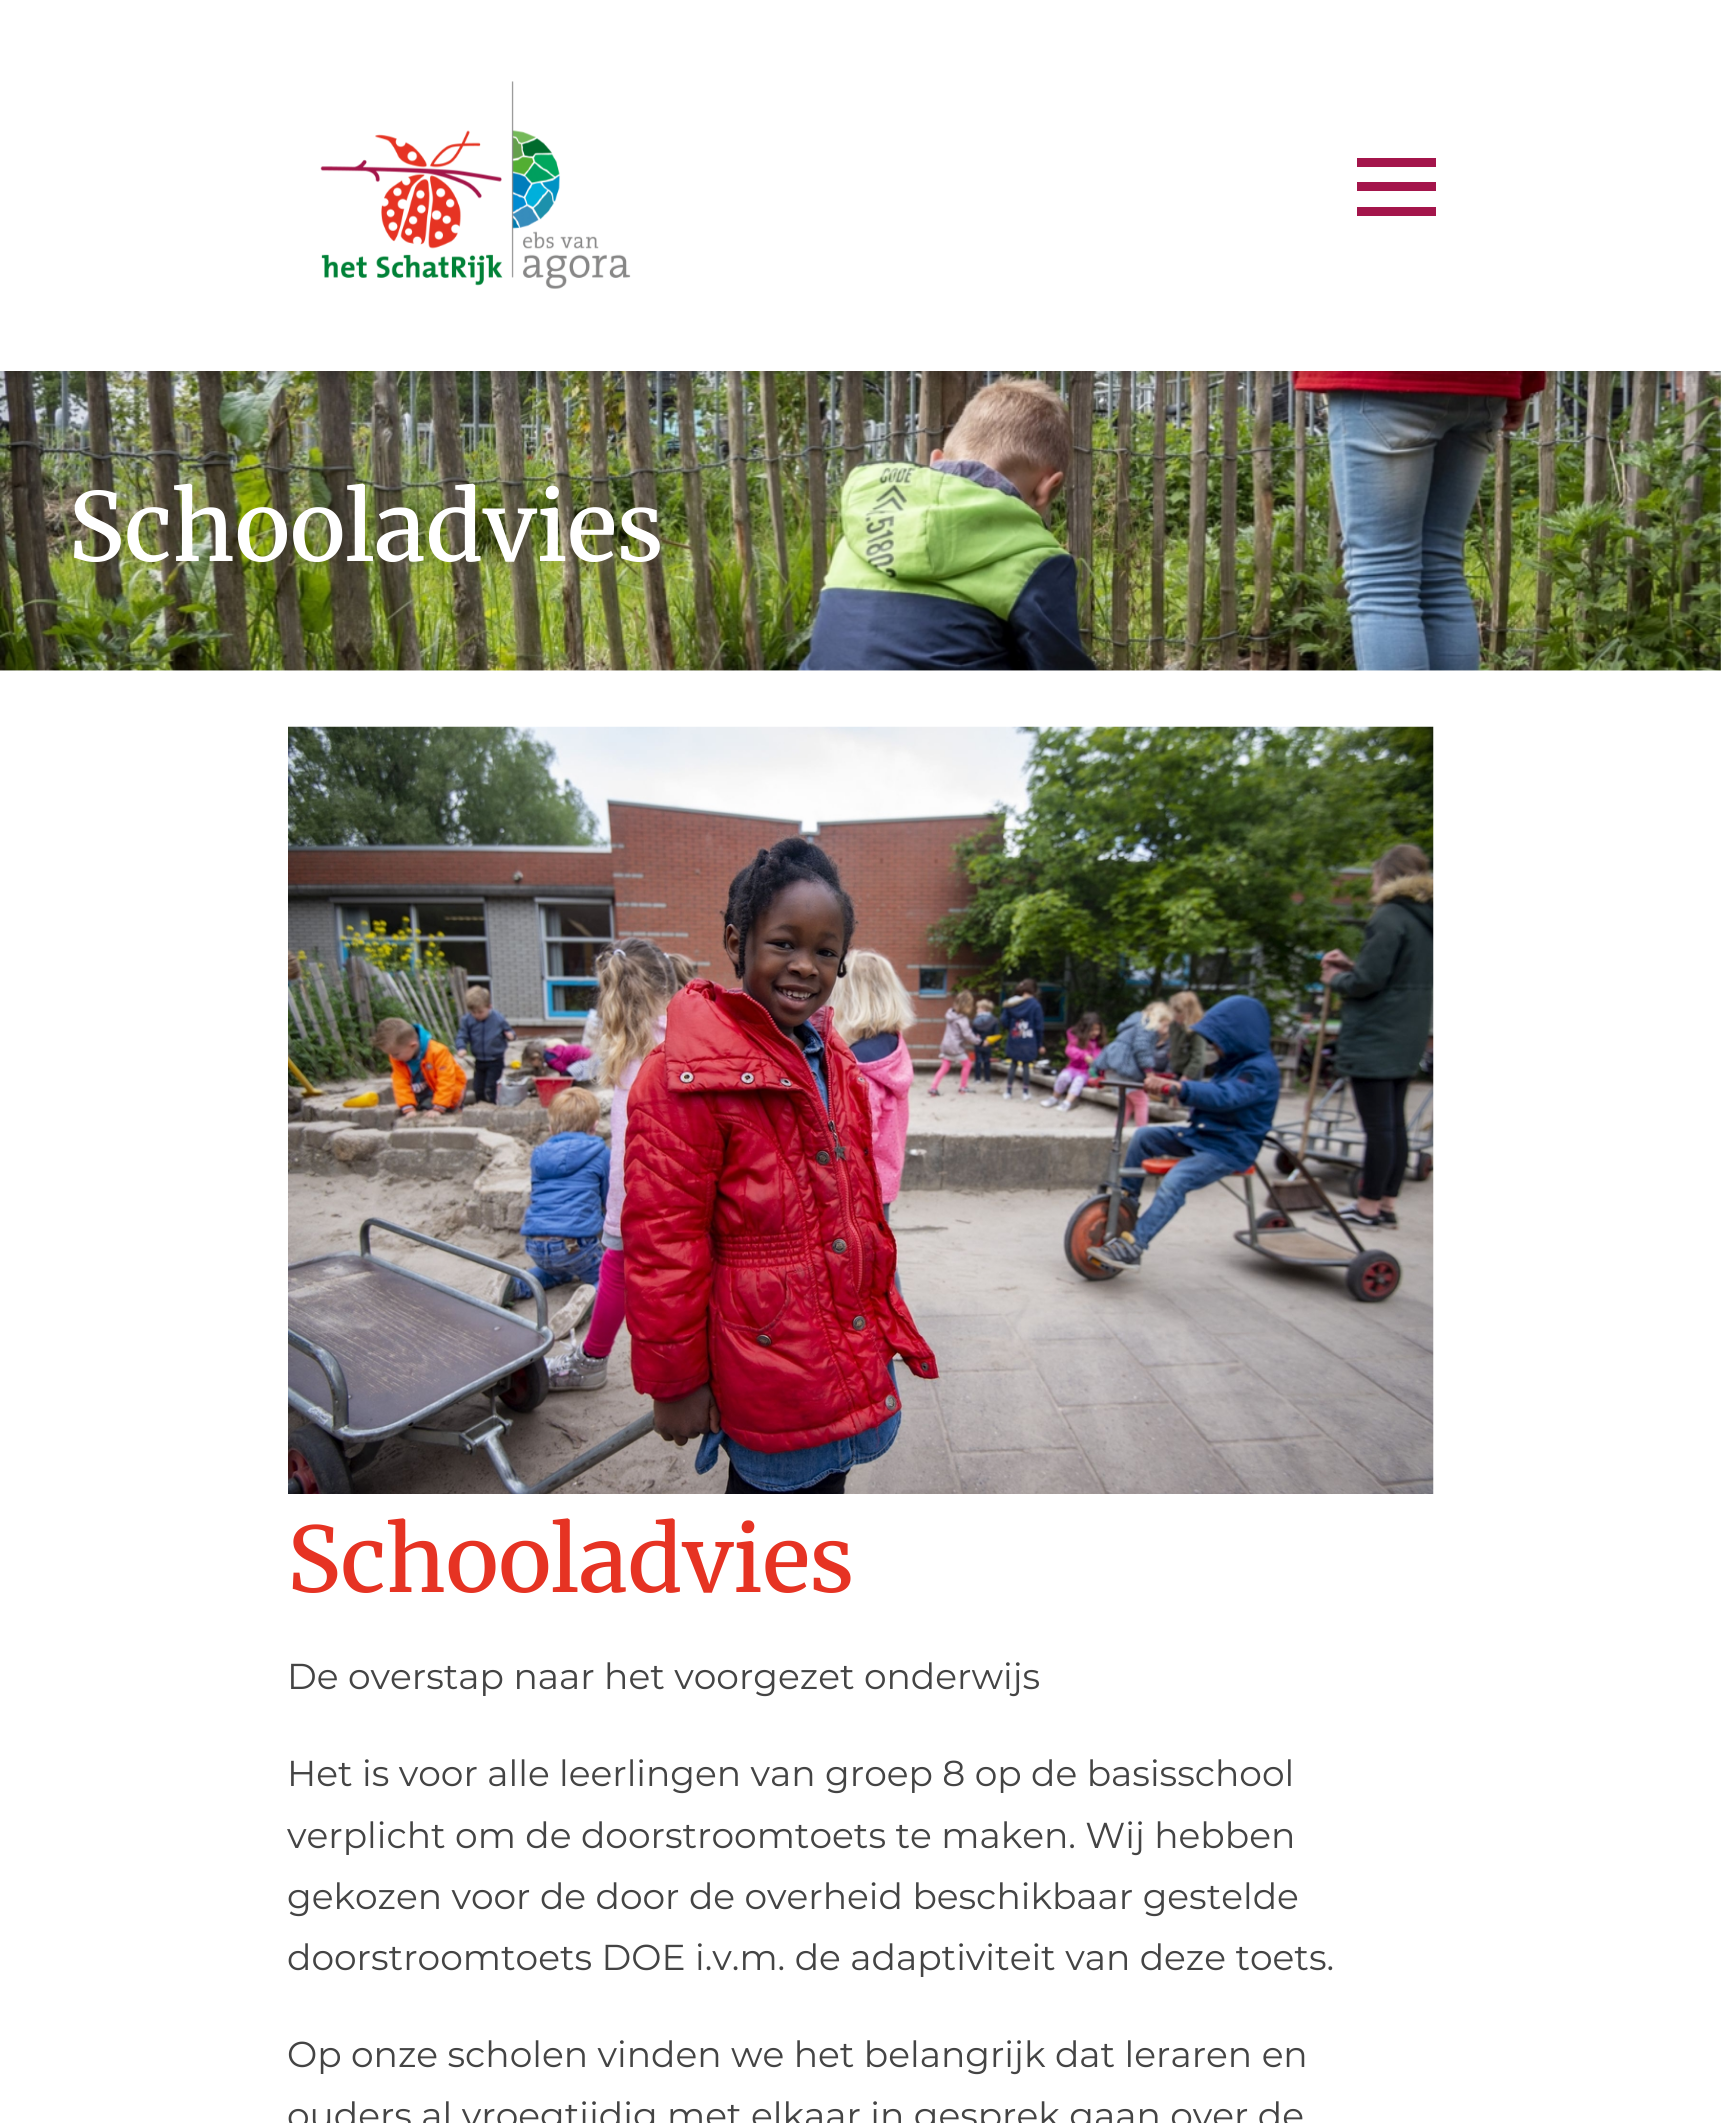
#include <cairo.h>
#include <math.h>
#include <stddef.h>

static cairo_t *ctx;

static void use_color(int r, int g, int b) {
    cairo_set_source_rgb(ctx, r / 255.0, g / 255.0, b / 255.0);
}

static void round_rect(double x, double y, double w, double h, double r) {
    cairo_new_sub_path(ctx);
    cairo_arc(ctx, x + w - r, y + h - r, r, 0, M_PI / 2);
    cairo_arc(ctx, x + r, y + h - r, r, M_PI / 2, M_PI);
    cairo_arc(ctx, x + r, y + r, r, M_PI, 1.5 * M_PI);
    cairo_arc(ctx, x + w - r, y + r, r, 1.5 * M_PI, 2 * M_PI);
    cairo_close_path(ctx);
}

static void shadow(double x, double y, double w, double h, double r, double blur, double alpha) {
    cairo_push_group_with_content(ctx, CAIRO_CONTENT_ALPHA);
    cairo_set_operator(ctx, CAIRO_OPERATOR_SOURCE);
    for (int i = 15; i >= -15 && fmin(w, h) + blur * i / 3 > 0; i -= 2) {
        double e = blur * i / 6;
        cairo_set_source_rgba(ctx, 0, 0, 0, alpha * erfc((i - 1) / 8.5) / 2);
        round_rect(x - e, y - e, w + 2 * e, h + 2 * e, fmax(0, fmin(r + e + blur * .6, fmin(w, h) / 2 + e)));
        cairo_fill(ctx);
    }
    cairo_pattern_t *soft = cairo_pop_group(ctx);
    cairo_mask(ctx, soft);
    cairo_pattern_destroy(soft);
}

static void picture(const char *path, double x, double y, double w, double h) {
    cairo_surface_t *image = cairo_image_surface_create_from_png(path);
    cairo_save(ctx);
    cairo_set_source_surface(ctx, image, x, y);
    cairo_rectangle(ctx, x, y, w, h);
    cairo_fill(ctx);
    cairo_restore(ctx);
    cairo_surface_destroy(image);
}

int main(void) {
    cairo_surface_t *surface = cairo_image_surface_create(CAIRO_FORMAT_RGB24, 1721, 2123);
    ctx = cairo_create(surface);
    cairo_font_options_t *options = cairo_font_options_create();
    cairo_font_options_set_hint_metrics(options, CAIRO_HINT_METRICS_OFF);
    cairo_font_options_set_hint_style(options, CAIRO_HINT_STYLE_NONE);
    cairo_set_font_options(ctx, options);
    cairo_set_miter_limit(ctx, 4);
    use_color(255, 255, 255);
    cairo_paint(ctx);
    picture("img2.png", 0, 371, 1721, 300);
    cairo_save(ctx);
    cairo_rectangle(ctx, 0, 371, 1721, 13);
    cairo_clip(ctx);
    use_color(0, 0, 0);
    shadow(0, 7, 1721, 371, 0, 7, 0.1);
    shadow(0, 7, 1721, 371, 0, 7, 0.1);
    cairo_restore(ctx);
    picture("img1.png", 320, 81, 311, 208);
    use_color(164, 21, 75);
    cairo_rectangle(ctx, 1357, 158, 79, 9);
    cairo_fill(ctx);
    cairo_rectangle(ctx, 1357, 182, 79, 9);
    cairo_fill(ctx);
    cairo_rectangle(ctx, 1357, 207, 79, 9);
    cairo_fill(ctx);
    cairo_select_font_face(ctx, "Merriweather Medium", CAIRO_FONT_SLANT_NORMAL, CAIRO_FONT_WEIGHT_NORMAL);
    cairo_set_font_size(ctx, 94.5);
    use_color(255, 255, 255);
    cairo_move_to(ctx, 68, 561);
    cairo_show_text(ctx, "Schooladvies");
    picture("img3.png", 288, 726, 1146, 768);
    cairo_set_font_size(ctx, 90);
    use_color(230, 51, 35);
    cairo_move_to(ctx, 287, 1592);
    cairo_show_text(ctx, "Schooladvies");
    cairo_select_font_face(ctx, "Montserrat", CAIRO_FONT_SLANT_NORMAL, CAIRO_FONT_WEIGHT_NORMAL);
    cairo_set_font_size(ctx, 36);
    use_color(68, 68, 68);
    cairo_move_to(ctx, 287, 1689);
    cairo_show_text(ctx, "De overstap naar het voorgezet onderwijs");
    cairo_move_to(ctx, 287, 1786);
    cairo_show_text(ctx, "Het is voor alle leerlingen van groep 8 op de basisschool");
    cairo_move_to(ctx, 287, 1848);
    cairo_show_text(ctx, "verplicht om de doorstroomtoets te maken. Wij hebben");
    cairo_move_to(ctx, 287, 1909);
    cairo_show_text(ctx, "gekozen voor de door de overheid beschikbaar gestelde");
    cairo_move_to(ctx, 287, 1970);
    cairo_show_text(ctx, "doorstroomtoets DOE i.v.m. de adaptiviteit van deze toets.");
    cairo_move_to(ctx, 287, 2067);
    cairo_show_text(ctx, "Op onze scholen vinden we het belangrijk dat leraren en");
    cairo_move_to(ctx, 287, 2128);
    cairo_show_text(ctx, "ouders al vroegtijdig met elkaar in gesprek gaan over de");
    cairo_surface_write_to_png(surface, "result.png");
    cairo_font_options_destroy(options);
    cairo_destroy(ctx);
    cairo_surface_destroy(surface);
    return 0;
}
